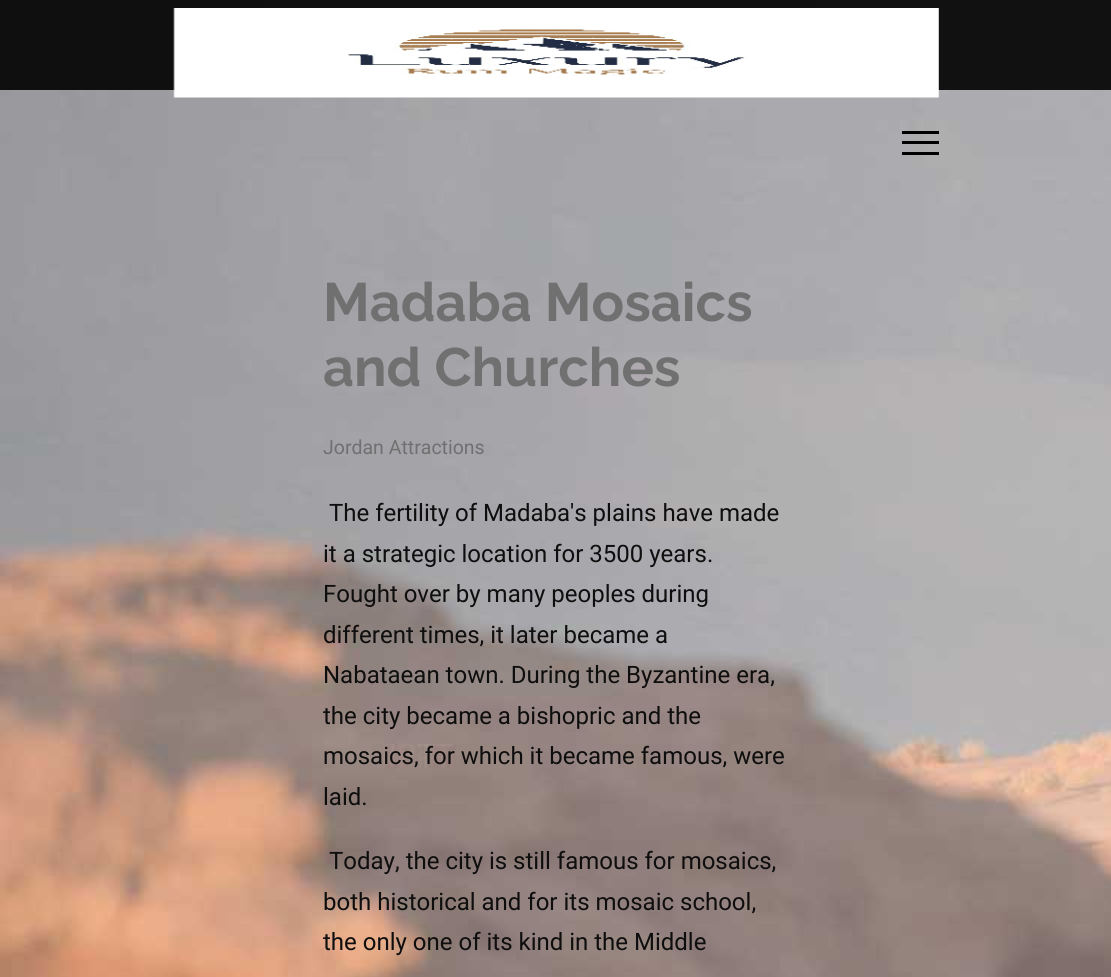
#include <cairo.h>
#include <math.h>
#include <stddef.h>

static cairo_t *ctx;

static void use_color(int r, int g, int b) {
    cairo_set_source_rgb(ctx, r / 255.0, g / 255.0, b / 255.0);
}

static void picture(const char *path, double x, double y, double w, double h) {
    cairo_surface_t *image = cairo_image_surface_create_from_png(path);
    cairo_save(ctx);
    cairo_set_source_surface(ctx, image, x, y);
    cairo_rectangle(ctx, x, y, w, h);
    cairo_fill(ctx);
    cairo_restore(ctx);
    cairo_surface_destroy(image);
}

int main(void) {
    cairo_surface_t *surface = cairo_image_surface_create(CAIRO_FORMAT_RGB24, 1111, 977);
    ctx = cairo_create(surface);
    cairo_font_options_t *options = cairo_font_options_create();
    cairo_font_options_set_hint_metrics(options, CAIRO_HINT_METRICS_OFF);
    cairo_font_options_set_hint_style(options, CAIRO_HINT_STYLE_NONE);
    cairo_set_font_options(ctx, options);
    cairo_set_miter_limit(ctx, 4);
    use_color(255, 255, 255);
    cairo_paint(ctx);
    picture("img1.png", 0, 0, 1111, 977);
    cairo_set_source_rgba(ctx, 0, 0, 0, 0.9);
    cairo_rectangle(ctx, 0, 0, 1111, 90);
    cairo_fill(ctx);
    picture("img2.png", 173, 8, 766, 90);
    use_color(0, 0, 0);
    cairo_rectangle(ctx, 902, 131, 37, 3);
    cairo_fill(ctx);
    cairo_rectangle(ctx, 902, 141, 37, 3);
    cairo_fill(ctx);
    cairo_rectangle(ctx, 902, 152, 37, 3);
    cairo_fill(ctx);
    cairo_select_font_face(ctx, "Raleway", CAIRO_FONT_SLANT_NORMAL, CAIRO_FONT_WEIGHT_BOLD);
    cairo_set_font_size(ctx, 54);
    use_color(112, 112, 112);
    cairo_move_to(ctx, 323, 321);
    cairo_show_text(ctx, "Madaba Mosaics");
    cairo_move_to(ctx, 323, 386);
    cairo_show_text(ctx, "and Churches");
    cairo_select_font_face(ctx, "Roboto", CAIRO_FONT_SLANT_NORMAL, CAIRO_FONT_WEIGHT_NORMAL);
    cairo_set_font_size(ctx, 19.5);
    cairo_move_to(ctx, 323, 454);
    cairo_show_text(ctx, "Jordan Attractions");
    cairo_set_font_size(ctx, 24);
    use_color(15, 14, 14);
    cairo_move_to(ctx, 329, 521);
    cairo_show_text(ctx, "The fertility of Madaba's plains have made");
    cairo_move_to(ctx, 323, 562);
    cairo_show_text(ctx, "it a strategic location for 3500 years.");
    cairo_move_to(ctx, 323, 602);
    cairo_show_text(ctx, "Fought over by many peoples during");
    cairo_move_to(ctx, 323, 643);
    cairo_show_text(ctx, "different times, it later became a");
    cairo_move_to(ctx, 323, 683);
    cairo_show_text(ctx, "Nabataean town. During the Byzantine era,");
    cairo_move_to(ctx, 323, 724);
    cairo_show_text(ctx, "the city became a bishopric and the");
    cairo_move_to(ctx, 323, 764);
    cairo_show_text(ctx, "mosaics, for which it became famous, were");
    cairo_move_to(ctx, 323, 805);
    cairo_show_text(ctx, "laid.");
    cairo_move_to(ctx, 329, 869);
    cairo_show_text(ctx, "Today, the city is still famous for mosaics,");
    cairo_move_to(ctx, 323, 910);
    cairo_show_text(ctx, "both historical and for its mosaic school,");
    cairo_move_to(ctx, 323, 950);
    cairo_show_text(ctx, "the only one of its kind in the Middle");
    cairo_surface_write_to_png(surface, "result.png");
    cairo_font_options_destroy(options);
    cairo_destroy(ctx);
    cairo_surface_destroy(surface);
    return 0;
}
